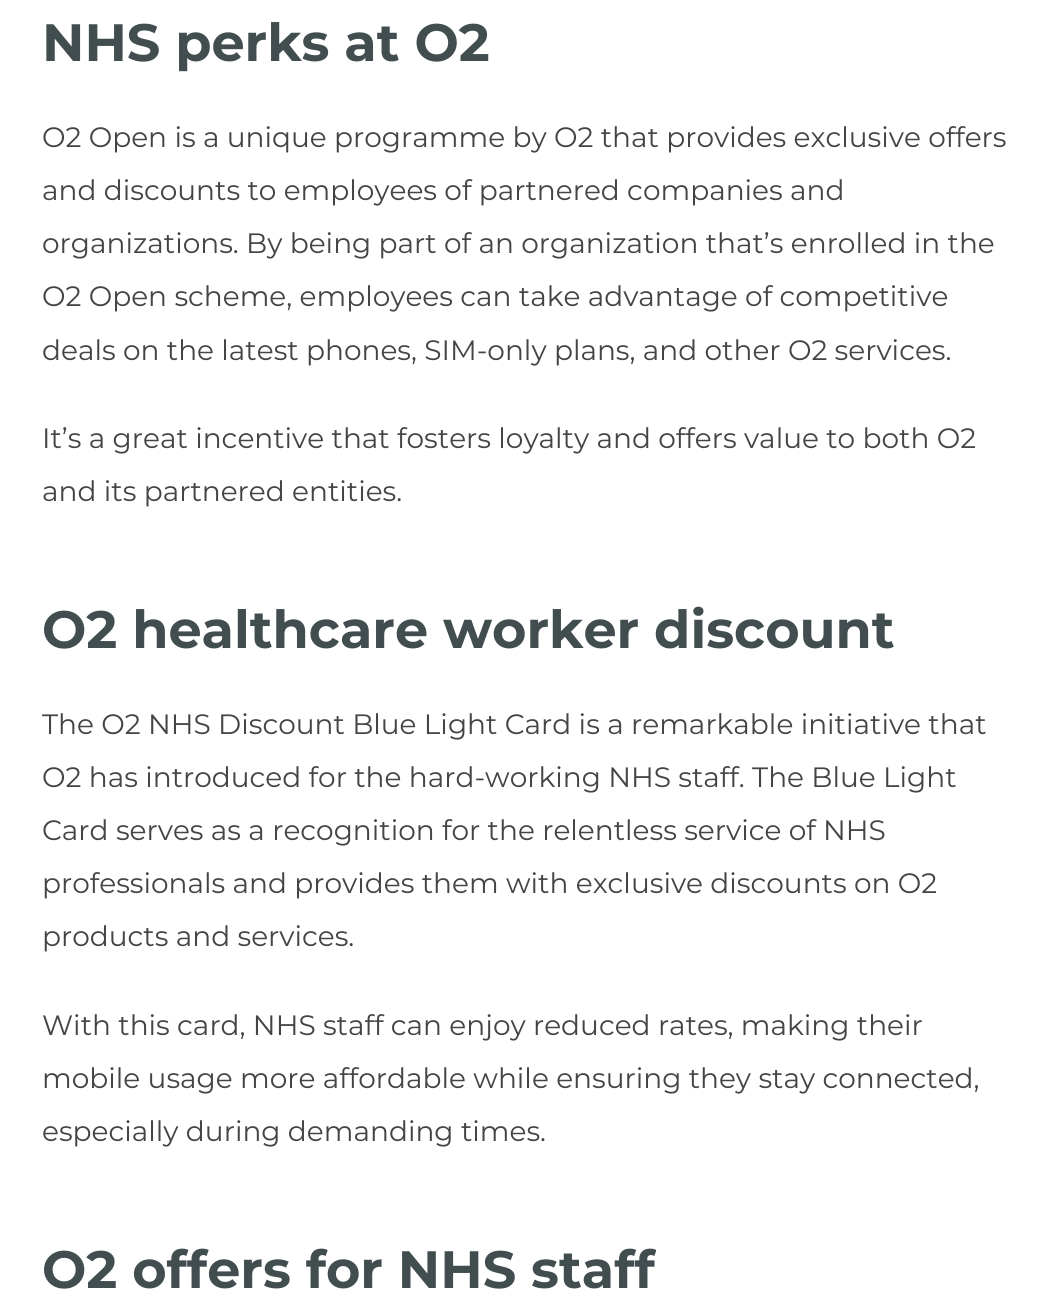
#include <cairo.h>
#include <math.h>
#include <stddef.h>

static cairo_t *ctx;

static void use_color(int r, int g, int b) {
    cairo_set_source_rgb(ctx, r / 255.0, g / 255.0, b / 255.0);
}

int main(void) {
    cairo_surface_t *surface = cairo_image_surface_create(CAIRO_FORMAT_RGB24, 1050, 1312);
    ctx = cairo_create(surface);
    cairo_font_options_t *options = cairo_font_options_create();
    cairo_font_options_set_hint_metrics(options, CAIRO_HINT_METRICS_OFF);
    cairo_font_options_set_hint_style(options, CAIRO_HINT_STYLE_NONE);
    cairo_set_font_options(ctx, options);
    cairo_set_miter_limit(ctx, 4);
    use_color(255, 255, 255);
    cairo_paint(ctx);
    cairo_select_font_face(ctx, "Montserrat", CAIRO_FONT_SLANT_NORMAL, CAIRO_FONT_WEIGHT_BOLD);
    cairo_set_font_size(ctx, 52.5);
    use_color(65, 77, 79);
    cairo_move_to(ctx, 42, 61);
    cairo_show_text(ctx, "NHS perks at O2");
    cairo_select_font_face(ctx, "Montserrat", CAIRO_FONT_SLANT_NORMAL, CAIRO_FONT_WEIGHT_NORMAL);
    cairo_set_font_size(ctx, 28);
    use_color(68, 68, 68);
    cairo_move_to(ctx, 42, 147);
    cairo_show_text(ctx, "O2 Open is a unique programme by O2 that provides exclusive offers");
    cairo_move_to(ctx, 42, 200);
    cairo_show_text(ctx, "and discounts to employees of partnered companies and");
    cairo_move_to(ctx, 42, 253);
    cairo_show_text(ctx, "organizations. By being part of an organization that’s enrolled in the");
    cairo_move_to(ctx, 42, 306);
    cairo_show_text(ctx, "O2 Open scheme, employees can take advantage of competitive");
    cairo_move_to(ctx, 42, 360);
    cairo_show_text(ctx, "deals on the latest phones, SIM-only plans, and other O2 services.");
    cairo_move_to(ctx, 42, 448);
    cairo_show_text(ctx, "It’s a great incentive that fosters loyalty and offers value to both O2");
    cairo_move_to(ctx, 42, 501);
    cairo_show_text(ctx, "and its partnered entities.");
    cairo_select_font_face(ctx, "Montserrat", CAIRO_FONT_SLANT_NORMAL, CAIRO_FONT_WEIGHT_BOLD);
    cairo_set_font_size(ctx, 52.5);
    use_color(65, 77, 79);
    cairo_move_to(ctx, 42, 648);
    cairo_show_text(ctx, "O2 healthcare worker discount");
    cairo_select_font_face(ctx, "Montserrat", CAIRO_FONT_SLANT_NORMAL, CAIRO_FONT_WEIGHT_NORMAL);
    cairo_set_font_size(ctx, 28);
    use_color(68, 68, 68);
    cairo_move_to(ctx, 42, 734);
    cairo_show_text(ctx, "The O2 NHS Discount Blue Light Card is a remarkable initiative that");
    cairo_move_to(ctx, 42, 787);
    cairo_show_text(ctx, "O2 has introduced for the hard-working NHS staff. The Blue Light");
    cairo_move_to(ctx, 42, 840);
    cairo_show_text(ctx, "Card serves as a recognition for the relentless service of NHS");
    cairo_move_to(ctx, 42, 893);
    cairo_show_text(ctx, "professionals and provides them with exclusive discounts on O2");
    cairo_move_to(ctx, 42, 946);
    cairo_show_text(ctx, "products and services.");
    cairo_move_to(ctx, 42, 1035);
    cairo_show_text(ctx, "With this card, NHS staff can enjoy reduced rates, making their");
    cairo_move_to(ctx, 42, 1088);
    cairo_show_text(ctx, "mobile usage more affordable while ensuring they stay connected,");
    cairo_move_to(ctx, 42, 1141);
    cairo_show_text(ctx, "especially during demanding times.");
    cairo_select_font_face(ctx, "Montserrat", CAIRO_FONT_SLANT_NORMAL, CAIRO_FONT_WEIGHT_BOLD);
    cairo_set_font_size(ctx, 52.5);
    use_color(65, 77, 79);
    cairo_move_to(ctx, 42, 1288);
    cairo_show_text(ctx, "O2 offers for NHS staff");
    cairo_surface_write_to_png(surface, "result.png");
    cairo_font_options_destroy(options);
    cairo_destroy(ctx);
    cairo_surface_destroy(surface);
    return 0;
}
